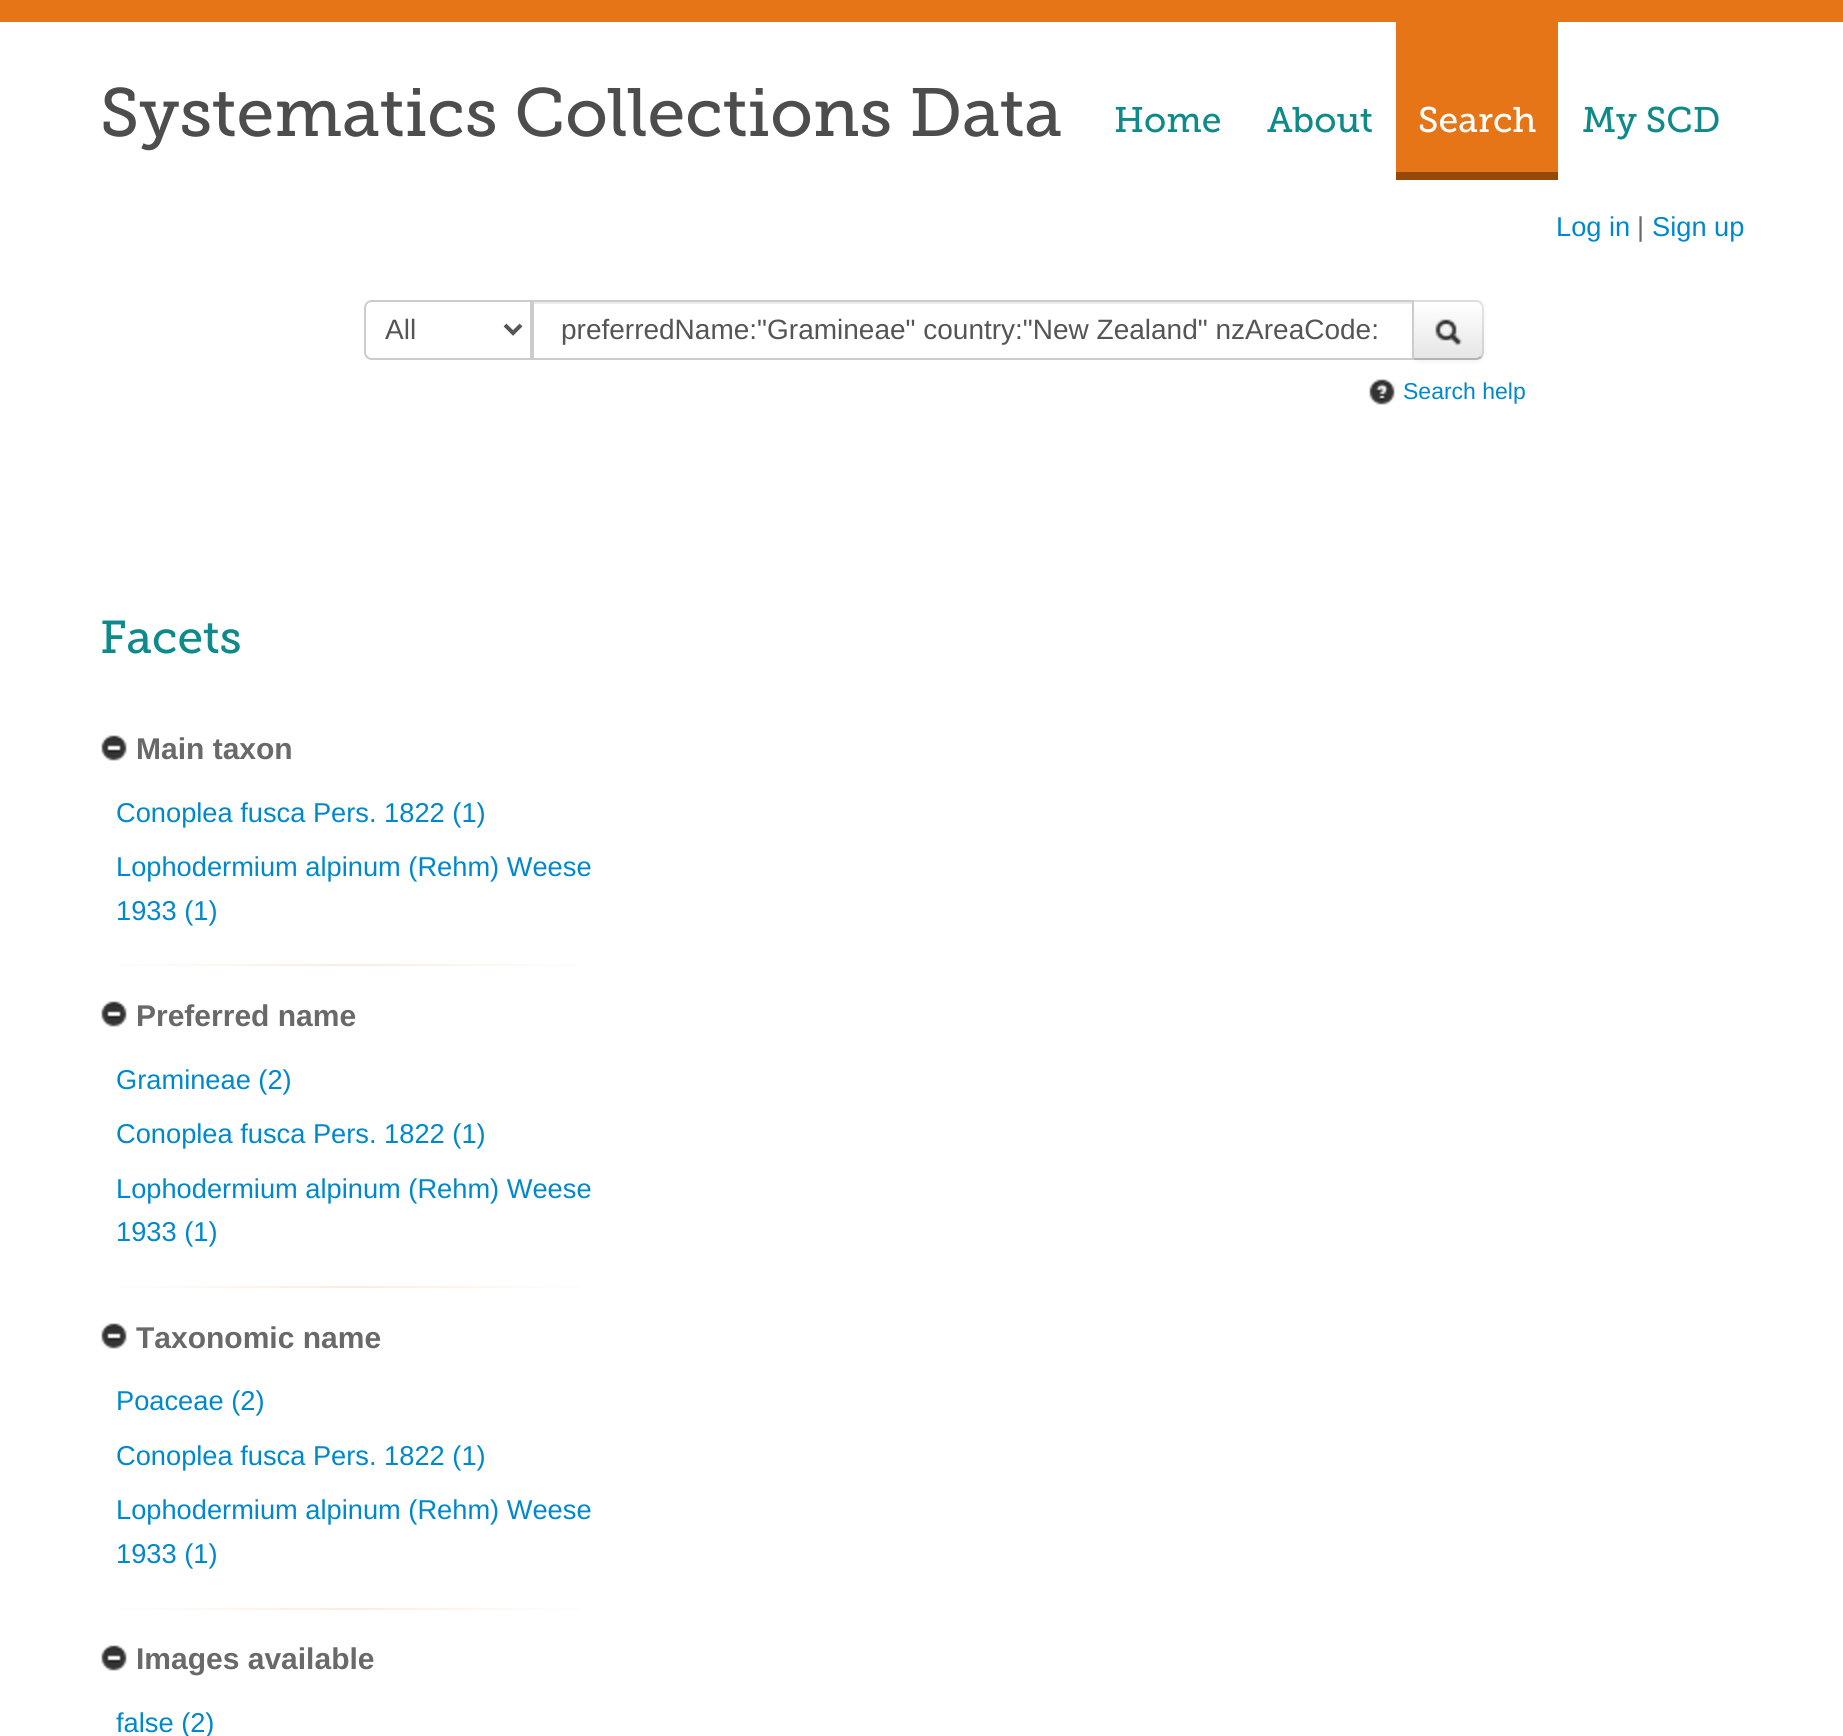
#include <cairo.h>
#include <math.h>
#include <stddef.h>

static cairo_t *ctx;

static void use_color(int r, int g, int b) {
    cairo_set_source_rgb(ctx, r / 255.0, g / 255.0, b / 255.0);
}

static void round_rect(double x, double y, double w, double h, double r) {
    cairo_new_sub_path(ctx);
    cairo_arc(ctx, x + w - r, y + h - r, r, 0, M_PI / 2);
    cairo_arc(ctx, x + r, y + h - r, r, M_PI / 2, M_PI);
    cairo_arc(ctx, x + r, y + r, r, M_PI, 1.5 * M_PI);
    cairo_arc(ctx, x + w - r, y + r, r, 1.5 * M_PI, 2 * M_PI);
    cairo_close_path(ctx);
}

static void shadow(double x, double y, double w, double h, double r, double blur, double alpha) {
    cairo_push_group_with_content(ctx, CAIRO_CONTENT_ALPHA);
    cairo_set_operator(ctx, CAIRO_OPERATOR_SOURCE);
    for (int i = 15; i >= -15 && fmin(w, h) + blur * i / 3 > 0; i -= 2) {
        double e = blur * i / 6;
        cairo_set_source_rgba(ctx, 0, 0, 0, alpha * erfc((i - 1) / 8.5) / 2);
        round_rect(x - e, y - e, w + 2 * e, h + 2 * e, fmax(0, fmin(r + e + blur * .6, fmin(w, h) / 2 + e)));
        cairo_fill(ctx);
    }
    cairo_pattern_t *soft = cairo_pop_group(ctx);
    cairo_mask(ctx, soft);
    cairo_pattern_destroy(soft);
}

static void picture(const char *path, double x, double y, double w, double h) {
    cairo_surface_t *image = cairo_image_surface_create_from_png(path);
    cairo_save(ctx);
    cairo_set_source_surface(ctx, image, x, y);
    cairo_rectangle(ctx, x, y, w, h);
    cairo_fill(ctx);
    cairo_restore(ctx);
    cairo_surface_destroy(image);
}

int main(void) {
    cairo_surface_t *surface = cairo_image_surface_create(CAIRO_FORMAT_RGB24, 1843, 1736);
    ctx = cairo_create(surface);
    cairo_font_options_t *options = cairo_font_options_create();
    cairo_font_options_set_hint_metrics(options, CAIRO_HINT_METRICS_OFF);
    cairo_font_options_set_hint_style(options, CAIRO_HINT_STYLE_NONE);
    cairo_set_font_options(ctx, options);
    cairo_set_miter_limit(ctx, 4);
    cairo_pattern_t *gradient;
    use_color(255, 255, 255);
    cairo_paint(ctx);
    use_color(230, 117, 23);
    cairo_rectangle(ctx, 0, 0, 1843, 22);
    cairo_fill(ctx);
    cairo_select_font_face(ctx, "Museo Slab", CAIRO_FONT_SLANT_NORMAL, CAIRO_FONT_WEIGHT_NORMAL);
    cairo_set_font_size(ctx, 68);
    use_color(77, 77, 77);
    cairo_move_to(ctx, 100, 136);
    cairo_show_text(ctx, "Systematics Collections Data");
    cairo_set_font_size(ctx, 35.5);
    use_color(14, 138, 138);
    cairo_move_to(ctx, 1114, 132);
    cairo_show_text(ctx, "Home");
    cairo_move_to(ctx, 1267, 132);
    cairo_show_text(ctx, "About");
    use_color(230, 117, 23);
    cairo_rectangle(ctx, 1396, 22, 162, 150);
    cairo_fill(ctx);
    use_color(150, 72, 7);
    cairo_rectangle(ctx, 1396, 172, 162, 8);
    cairo_fill(ctx);
    use_color(255, 255, 255);
    cairo_move_to(ctx, 1418, 132);
    cairo_show_text(ctx, "Search");
    use_color(14, 138, 138);
    cairo_move_to(ctx, 1582, 132);
    cairo_show_text(ctx, "My SCD");
    cairo_select_font_face(ctx, "Liberation Sans", CAIRO_FONT_SLANT_NORMAL, CAIRO_FONT_WEIGHT_NORMAL);
    cairo_set_font_size(ctx, 27.25);
    use_color(0, 136, 204);
    cairo_move_to(ctx, 1556, 236);
    cairo_show_text(ctx, "Log in");
    use_color(105, 105, 105);
    cairo_move_to(ctx, 1637, 236);
    cairo_show_text(ctx, "|");
    use_color(0, 136, 204);
    cairo_move_to(ctx, 1652, 236);
    cairo_show_text(ctx, "Sign up");
    cairo_new_path(ctx);
    cairo_move_to(ctx, 372, 301);
    cairo_line_to(ctx, 531, 301);
    cairo_line_to(ctx, 531, 359);
    cairo_line_to(ctx, 372, 359);
    cairo_curve_to(ctx, 368, 359, 365, 356, 365, 352);
    cairo_line_to(ctx, 365, 308);
    cairo_curve_to(ctx, 365, 304, 368, 301, 372, 301);
    cairo_close_path(ctx);
    use_color(204, 204, 204);
    cairo_stroke(ctx);
    cairo_new_path(ctx);
    cairo_move_to(ctx, 505, 325);
    cairo_line_to(ctx, 513, 333);
    cairo_line_to(ctx, 521, 325);
    use_color(85, 85, 85);
    cairo_set_line_width(ctx, 4);
    cairo_stroke(ctx);
    cairo_set_font_size(ctx, 28);
    cairo_move_to(ctx, 385, 339);
    cairo_show_text(ctx, "All");
    use_color(0, 0, 0);
    shadow(1412, 302, 72, 60, 8, 2, 0.05);
    use_color(255, 255, 255);
    cairo_rectangle(ctx, 1410, 306, 2, 52);
    cairo_fill(ctx);
    use_color(236, 236, 236);
    cairo_rectangle(ctx, 534, 302, 878, 2);
    cairo_fill(ctx);
    use_color(245, 245, 245);
    cairo_new_path(ctx);
    cairo_move_to(ctx, 1412, 300);
    cairo_line_to(ctx, 1476, 300);
    cairo_curve_to(ctx, 1480.5, 300, 1484, 303.5, 1484, 308);
    cairo_line_to(ctx, 1484, 352);
    cairo_curve_to(ctx, 1484, 356.5, 1480.5, 360, 1476, 360);
    cairo_line_to(ctx, 1412, 360);
    cairo_close_path(ctx);
    cairo_fill(ctx);
    cairo_save(ctx);
    cairo_new_path(ctx);
    cairo_move_to(ctx, 1412, 300);
    cairo_line_to(ctx, 1476, 300);
    cairo_curve_to(ctx, 1480.5, 300, 1484, 303.5, 1484, 308);
    cairo_line_to(ctx, 1484, 352);
    cairo_curve_to(ctx, 1484, 356.5, 1480.5, 360, 1476, 360);
    cairo_line_to(ctx, 1412, 360);
    cairo_close_path(ctx);
    cairo_clip(ctx);
    gradient = cairo_pattern_create_linear(1448, 302, 1448, 358);
    cairo_pattern_add_color_stop_rgba(gradient, 0, 1, 1, 1, 1);
    cairo_pattern_add_color_stop_rgba(gradient, 1, 0.902, 0.902, 0.902, 1);
    cairo_set_source(ctx, gradient);
    cairo_pattern_destroy(gradient);
    cairo_rectangle(ctx, 1414, 302, 70, 56);
    cairo_fill(ctx);
    cairo_restore(ctx);
    cairo_set_source_rgba(ctx, 0, 0, 0, 0.1);
    cairo_new_path(ctx);
    cairo_move_to(ctx, 1412, 300);
    cairo_line_to(ctx, 1414, 302);
    cairo_line_to(ctx, 1476, 302);
    cairo_curve_to(ctx, 1478, 302, 1479, 303, 1480, 304);
    cairo_line_to(ctx, 1482, 302);
    cairo_curve_to(ctx, 1480, 301, 1478, 300, 1476, 300);
    cairo_close_path(ctx);
    cairo_fill(ctx);
    cairo_new_path(ctx);
    cairo_move_to(ctx, 1484, 352);
    cairo_line_to(ctx, 1484, 308);
    cairo_curve_to(ctx, 1484, 306, 1483, 304, 1482, 302);
    cairo_line_to(ctx, 1480, 304);
    cairo_curve_to(ctx, 1481, 305, 1482, 306, 1482, 308);
    cairo_line_to(ctx, 1482, 352);
    cairo_curve_to(ctx, 1482, 354, 1481, 355, 1480, 356);
    cairo_line_to(ctx, 1482, 358);
    cairo_curve_to(ctx, 1483, 356, 1484, 354, 1484, 352);
    cairo_close_path(ctx);
    cairo_fill(ctx);
    use_color(179, 179, 179);
    cairo_new_path(ctx);
    cairo_move_to(ctx, 1476, 360);
    cairo_curve_to(ctx, 1478, 360, 1480, 359, 1482, 358);
    cairo_line_to(ctx, 1480, 356);
    cairo_curve_to(ctx, 1479, 357, 1478, 358, 1476, 358);
    cairo_line_to(ctx, 1414, 358);
    cairo_line_to(ctx, 1412, 360);
    cairo_close_path(ctx);
    cairo_fill(ctx);
    cairo_rectangle(ctx, 533, 301, 880, 58);
    use_color(204, 204, 204);
    cairo_set_line_width(ctx, 2);
    cairo_stroke(ctx);
    use_color(85, 85, 85);
    cairo_move_to(ctx, 561, 339);
    cairo_show_text(ctx, "preferredName:\"Gramineae\" country:\"New Zealand\" nzAreaCode:");
    picture("img1.png", 1435, 319, 27, 27);
    picture("img2.png", 1369, 379, 26, 26);
    cairo_set_font_size(ctx, 23);
    use_color(0, 136, 204);
    cairo_move_to(ctx, 1403, 399);
    cairo_show_text(ctx, "Search help");
    cairo_select_font_face(ctx, "Museo Slab", CAIRO_FONT_SLANT_NORMAL, CAIRO_FONT_WEIGHT_NORMAL);
    cairo_set_font_size(ctx, 46);
    use_color(14, 138, 138);
    cairo_move_to(ctx, 100, 653);
    cairo_show_text(ctx, "Facets");
    picture("img3.png", 101, 735, 26, 26);
    cairo_select_font_face(ctx, "Liberation Sans", CAIRO_FONT_SLANT_NORMAL, CAIRO_FONT_WEIGHT_BOLD);
    cairo_set_font_size(ctx, 30);
    use_color(105, 105, 105);
    cairo_move_to(ctx, 136, 759);
    cairo_show_text(ctx, "Main taxon");
    cairo_select_font_face(ctx, "Liberation Sans", CAIRO_FONT_SLANT_NORMAL, CAIRO_FONT_WEIGHT_NORMAL);
    cairo_set_font_size(ctx, 27.25);
    use_color(0, 136, 204);
    cairo_move_to(ctx, 116, 822);
    cairo_show_text(ctx, "Conoplea fusca Pers. 1822 (1)");
    cairo_move_to(ctx, 116, 876);
    cairo_show_text(ctx, "Lophodermium alpinum (Rehm) Weese");
    cairo_move_to(ctx, 116, 920);
    cairo_show_text(ctx, "1933 (1)");
    gradient = cairo_pattern_create_linear(100, 965, 600, 965);
    cairo_pattern_add_color_stop_rgba(gradient, 0, 1, 1, 1, 1);
    cairo_pattern_add_color_stop_rgba(gradient, 0.5, 0.988, 0.925, 0.871, 1);
    cairo_pattern_add_color_stop_rgba(gradient, 1, 1, 1, 1, 1);
    cairo_set_source(ctx, gradient);
    cairo_pattern_destroy(gradient);
    cairo_rectangle(ctx, 119, 964, 462, 2);
    cairo_fill(ctx);
    picture("img3.png", 101, 1001, 26, 26);
    cairo_select_font_face(ctx, "Liberation Sans", CAIRO_FONT_SLANT_NORMAL, CAIRO_FONT_WEIGHT_BOLD);
    cairo_set_font_size(ctx, 30);
    use_color(105, 105, 105);
    cairo_move_to(ctx, 136, 1026);
    cairo_show_text(ctx, "Preferred name");
    cairo_select_font_face(ctx, "Liberation Sans", CAIRO_FONT_SLANT_NORMAL, CAIRO_FONT_WEIGHT_NORMAL);
    cairo_set_font_size(ctx, 27.25);
    use_color(0, 136, 204);
    cairo_move_to(ctx, 116, 1089);
    cairo_show_text(ctx, "Gramineae (2)");
    cairo_move_to(ctx, 116, 1143);
    cairo_show_text(ctx, "Conoplea fusca Pers. 1822 (1)");
    cairo_move_to(ctx, 116, 1198);
    cairo_show_text(ctx, "Lophodermium alpinum (Rehm) Weese");
    cairo_move_to(ctx, 116, 1241);
    cairo_show_text(ctx, "1933 (1)");
    gradient = cairo_pattern_create_linear(100, 1287, 600, 1287);
    cairo_pattern_add_color_stop_rgba(gradient, 0, 1, 1, 1, 1);
    cairo_pattern_add_color_stop_rgba(gradient, 0.5, 0.988, 0.925, 0.871, 1);
    cairo_pattern_add_color_stop_rgba(gradient, 1, 1, 1, 1, 1);
    cairo_set_source(ctx, gradient);
    cairo_pattern_destroy(gradient);
    cairo_rectangle(ctx, 119, 1286, 462, 2);
    cairo_fill(ctx);
    picture("img3.png", 101, 1323, 26, 26);
    cairo_select_font_face(ctx, "Liberation Sans", CAIRO_FONT_SLANT_NORMAL, CAIRO_FONT_WEIGHT_BOLD);
    cairo_set_font_size(ctx, 30);
    use_color(105, 105, 105);
    cairo_move_to(ctx, 136, 1348);
    cairo_show_text(ctx, "Taxonomic name");
    cairo_select_font_face(ctx, "Liberation Sans", CAIRO_FONT_SLANT_NORMAL, CAIRO_FONT_WEIGHT_NORMAL);
    cairo_set_font_size(ctx, 27.25);
    use_color(0, 136, 204);
    cairo_move_to(ctx, 116, 1410);
    cairo_show_text(ctx, "Poaceae (2)");
    cairo_move_to(ctx, 116, 1465);
    cairo_show_text(ctx, "Conoplea fusca Pers. 1822 (1)");
    cairo_move_to(ctx, 116, 1519);
    cairo_show_text(ctx, "Lophodermium alpinum (Rehm) Weese");
    cairo_move_to(ctx, 116, 1563);
    cairo_show_text(ctx, "1933 (1)");
    gradient = cairo_pattern_create_linear(100, 1609, 600, 1609);
    cairo_pattern_add_color_stop_rgba(gradient, 0, 1, 1, 1, 1);
    cairo_pattern_add_color_stop_rgba(gradient, 0.5, 0.988, 0.925, 0.871, 1);
    cairo_pattern_add_color_stop_rgba(gradient, 1, 1, 1, 1, 1);
    cairo_set_source(ctx, gradient);
    cairo_pattern_destroy(gradient);
    cairo_rectangle(ctx, 119, 1608, 462, 2);
    cairo_fill(ctx);
    picture("img3.png", 101, 1645, 26, 26);
    cairo_select_font_face(ctx, "Liberation Sans", CAIRO_FONT_SLANT_NORMAL, CAIRO_FONT_WEIGHT_BOLD);
    cairo_set_font_size(ctx, 30);
    use_color(105, 105, 105);
    cairo_move_to(ctx, 136, 1669);
    cairo_show_text(ctx, "Images available");
    cairo_select_font_face(ctx, "Liberation Sans", CAIRO_FONT_SLANT_NORMAL, CAIRO_FONT_WEIGHT_NORMAL);
    cairo_set_font_size(ctx, 27.25);
    use_color(0, 136, 204);
    cairo_move_to(ctx, 116, 1732);
    cairo_show_text(ctx, "false (2)");
    cairo_surface_write_to_png(surface, "result.png");
    cairo_font_options_destroy(options);
    cairo_destroy(ctx);
    cairo_surface_destroy(surface);
    return 0;
}
